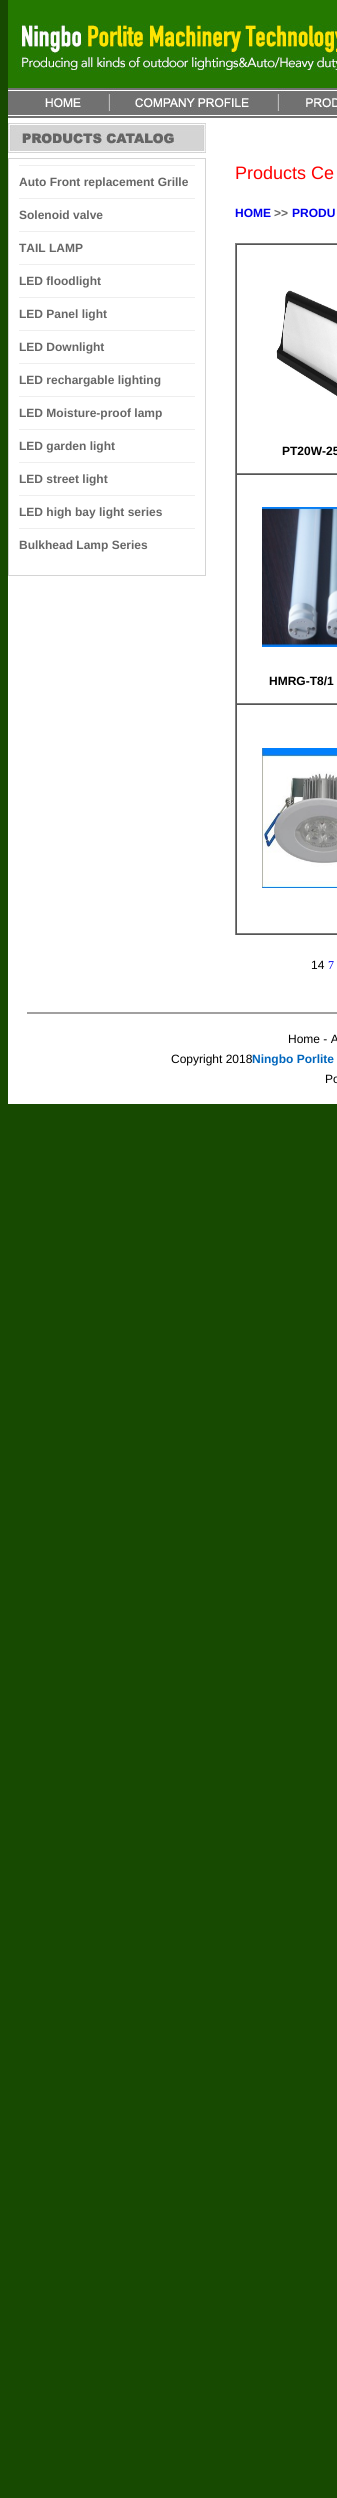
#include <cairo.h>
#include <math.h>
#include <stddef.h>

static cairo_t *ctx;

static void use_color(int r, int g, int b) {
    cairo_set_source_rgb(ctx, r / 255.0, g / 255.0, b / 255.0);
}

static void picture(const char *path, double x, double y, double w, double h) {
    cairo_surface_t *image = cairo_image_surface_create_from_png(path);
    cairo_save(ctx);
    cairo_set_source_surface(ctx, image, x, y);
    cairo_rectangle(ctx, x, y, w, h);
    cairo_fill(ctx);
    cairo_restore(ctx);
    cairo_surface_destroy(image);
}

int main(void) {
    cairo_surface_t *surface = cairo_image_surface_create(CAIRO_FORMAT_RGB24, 337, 2498);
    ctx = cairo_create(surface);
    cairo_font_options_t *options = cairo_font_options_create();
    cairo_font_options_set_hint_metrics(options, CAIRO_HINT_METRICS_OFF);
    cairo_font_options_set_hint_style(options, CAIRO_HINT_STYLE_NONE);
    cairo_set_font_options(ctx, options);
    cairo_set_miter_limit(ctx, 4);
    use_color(23, 74, 1);
    cairo_paint(ctx);
    picture("img1.png", 8, 0, 329, 88);
    picture("img2.png", 8, 88, 101, 30);
    picture("img3.png", 109, 88, 169, 30);
    picture("img4.png", 278, 88, 59, 30);
    use_color(255, 255, 255);
    cairo_rectangle(ctx, 8, 118, 329, 5);
    cairo_fill(ctx);
    cairo_rectangle(ctx, 8, 153, 198, 842);
    cairo_fill(ctx);
    picture("img5.png", 8, 123, 198, 30);
    use_color(212, 212, 212);
    cairo_rectangle(ctx, 8, 158, 198, 418);
    cairo_fill(ctx);
    use_color(255, 255, 255);
    cairo_rectangle(ctx, 9, 159, 196, 416);
    cairo_fill(ctx);
    use_color(238, 238, 238);
    cairo_rectangle(ctx, 19, 165, 176, 1);
    cairo_fill(ctx);
    cairo_select_font_face(ctx, "Liberation Sans", CAIRO_FONT_SLANT_NORMAL, CAIRO_FONT_WEIGHT_BOLD);
    cairo_set_font_size(ctx, 12);
    use_color(102, 102, 102);
    cairo_move_to(ctx, 19, 186);
    cairo_show_text(ctx, "Auto Front replacement Grille");
    use_color(238, 238, 238);
    cairo_rectangle(ctx, 19, 198, 176, 1);
    cairo_fill(ctx);
    use_color(102, 102, 102);
    cairo_move_to(ctx, 19, 219);
    cairo_show_text(ctx, "Solenoid valve");
    use_color(238, 238, 238);
    cairo_rectangle(ctx, 19, 231, 176, 1);
    cairo_fill(ctx);
    use_color(102, 102, 102);
    cairo_move_to(ctx, 19, 252);
    cairo_show_text(ctx, "TAIL LAMP");
    use_color(238, 238, 238);
    cairo_rectangle(ctx, 19, 264, 176, 1);
    cairo_fill(ctx);
    use_color(102, 102, 102);
    cairo_move_to(ctx, 19, 285);
    cairo_show_text(ctx, "LED floodlight");
    use_color(238, 238, 238);
    cairo_rectangle(ctx, 19, 297, 176, 1);
    cairo_fill(ctx);
    use_color(102, 102, 102);
    cairo_move_to(ctx, 19, 318);
    cairo_show_text(ctx, "LED Panel light");
    use_color(238, 238, 238);
    cairo_rectangle(ctx, 19, 330, 176, 1);
    cairo_fill(ctx);
    use_color(102, 102, 102);
    cairo_move_to(ctx, 19, 351);
    cairo_show_text(ctx, "LED Downlight");
    use_color(238, 238, 238);
    cairo_rectangle(ctx, 19, 363, 176, 1);
    cairo_fill(ctx);
    use_color(102, 102, 102);
    cairo_move_to(ctx, 19, 384);
    cairo_show_text(ctx, "LED rechargable lighting");
    use_color(238, 238, 238);
    cairo_rectangle(ctx, 19, 396, 176, 1);
    cairo_fill(ctx);
    use_color(102, 102, 102);
    cairo_move_to(ctx, 19, 417);
    cairo_show_text(ctx, "LED Moisture-proof lamp");
    use_color(238, 238, 238);
    cairo_rectangle(ctx, 19, 429, 176, 1);
    cairo_fill(ctx);
    use_color(102, 102, 102);
    cairo_move_to(ctx, 19, 450);
    cairo_show_text(ctx, "LED garden light");
    use_color(238, 238, 238);
    cairo_rectangle(ctx, 19, 462, 176, 1);
    cairo_fill(ctx);
    use_color(102, 102, 102);
    cairo_move_to(ctx, 19, 483);
    cairo_show_text(ctx, "LED street light");
    use_color(238, 238, 238);
    cairo_rectangle(ctx, 19, 495, 176, 1);
    cairo_fill(ctx);
    use_color(102, 102, 102);
    cairo_move_to(ctx, 19, 516);
    cairo_show_text(ctx, "LED high bay light series");
    use_color(238, 238, 238);
    cairo_rectangle(ctx, 19, 528, 176, 1);
    cairo_fill(ctx);
    use_color(102, 102, 102);
    cairo_move_to(ctx, 19, 549);
    cairo_show_text(ctx, "Bulkhead Lamp Series");
    use_color(255, 255, 255);
    cairo_rectangle(ctx, 206, 123, 131, 872);
    cairo_fill(ctx);
    cairo_select_font_face(ctx, "Liberation Sans", CAIRO_FONT_SLANT_NORMAL, CAIRO_FONT_WEIGHT_NORMAL);
    cairo_set_font_size(ctx, 18);
    use_color(255, 0, 0);
    cairo_move_to(ctx, 235, 179);
    cairo_show_text(ctx, "Products Ce");
    cairo_select_font_face(ctx, "Liberation Sans", CAIRO_FONT_SLANT_NORMAL, CAIRO_FONT_WEIGHT_BOLD);
    cairo_set_font_size(ctx, 12);
    use_color(0, 0, 238);
    cairo_move_to(ctx, 235, 217);
    cairo_show_text(ctx, "HOME");
    use_color(102, 102, 102);
    cairo_move_to(ctx, 274, 217);
    cairo_show_text(ctx, ">>");
    use_color(0, 0, 238);
    cairo_move_to(ctx, 292, 217);
    cairo_show_text(ctx, "PRODU");
    use_color(128, 128, 128);
    cairo_rectangle(ctx, 235, 243, 102, 1);
    cairo_fill(ctx);
    use_color(85, 85, 85);
    cairo_rectangle(ctx, 235, 934, 102, 1);
    cairo_fill(ctx);
    use_color(128, 128, 128);
    cairo_rectangle(ctx, 235, 243, 1, 692);
    cairo_fill(ctx);
    use_color(85, 85, 85);
    cairo_rectangle(ctx, 236, 244, 101, 1);
    cairo_fill(ctx);
    use_color(128, 128, 128);
    cairo_rectangle(ctx, 236, 473, 101, 1);
    cairo_fill(ctx);
    use_color(85, 85, 85);
    cairo_rectangle(ctx, 236, 244, 1, 230);
    cairo_fill(ctx);
    picture("img6.png", 276, 290, 61, 107);
    use_color(0, 0, 0);
    cairo_move_to(ctx, 282, 455);
    cairo_show_text(ctx, "PT20W-25");
    use_color(85, 85, 85);
    cairo_rectangle(ctx, 236, 474, 101, 1);
    cairo_fill(ctx);
    use_color(128, 128, 128);
    cairo_rectangle(ctx, 236, 703, 101, 1);
    cairo_fill(ctx);
    use_color(85, 85, 85);
    cairo_rectangle(ctx, 236, 474, 1, 230);
    cairo_fill(ctx);
    picture("img7.png", 262, 507, 75, 140);
    use_color(0, 0, 0);
    cairo_move_to(ctx, 269, 685);
    cairo_show_text(ctx, "HMRG-T8/1");
    use_color(85, 85, 85);
    cairo_rectangle(ctx, 236, 704, 101, 1);
    cairo_fill(ctx);
    use_color(128, 128, 128);
    cairo_rectangle(ctx, 236, 933, 101, 1);
    cairo_fill(ctx);
    use_color(85, 85, 85);
    cairo_rectangle(ctx, 236, 704, 1, 230);
    cairo_fill(ctx);
    picture("img8.png", 262, 748, 75, 140);
    cairo_select_font_face(ctx, "Liberation Sans", CAIRO_FONT_SLANT_NORMAL, CAIRO_FONT_WEIGHT_NORMAL);
    use_color(0, 0, 0);
    cairo_move_to(ctx, 311, 969);
    cairo_show_text(ctx, "14");
    cairo_select_font_face(ctx, "Liberation Serif", CAIRO_FONT_SLANT_NORMAL, CAIRO_FONT_WEIGHT_NORMAL);
    use_color(0, 0, 238);
    cairo_move_to(ctx, 328, 969);
    cairo_show_text(ctx, "7");
    use_color(255, 255, 255);
    cairo_rectangle(ctx, 8, 995, 329, 17);
    cairo_fill(ctx);
    cairo_rectangle(ctx, 8, 1012, 19, 2);
    cairo_fill(ctx);
    use_color(161, 160, 160);
    cairo_rectangle(ctx, 27, 1012, 310, 2);
    cairo_fill(ctx);
    use_color(255, 255, 255);
    cairo_rectangle(ctx, 8, 1014, 329, 90);
    cairo_fill(ctx);
    cairo_select_font_face(ctx, "Liberation Sans", CAIRO_FONT_SLANT_NORMAL, CAIRO_FONT_WEIGHT_NORMAL);
    use_color(0, 0, 0);
    cairo_move_to(ctx, 288, 1043);
    cairo_show_text(ctx, "Home - A");
    cairo_move_to(ctx, 171, 1063);
    cairo_show_text(ctx, "Copyright 2018");
    cairo_select_font_face(ctx, "Liberation Sans", CAIRO_FONT_SLANT_NORMAL, CAIRO_FONT_WEIGHT_BOLD);
    use_color(0, 102, 189);
    cairo_move_to(ctx, 252, 1063);
    cairo_show_text(ctx, "Ningbo Porlite");
    cairo_select_font_face(ctx, "Liberation Sans", CAIRO_FONT_SLANT_NORMAL, CAIRO_FONT_WEIGHT_NORMAL);
    use_color(0, 0, 0);
    cairo_move_to(ctx, 325, 1083);
    cairo_show_text(ctx, "Po");
    cairo_surface_write_to_png(surface, "result.png");
    cairo_font_options_destroy(options);
    cairo_destroy(ctx);
    cairo_surface_destroy(surface);
    return 0;
}
